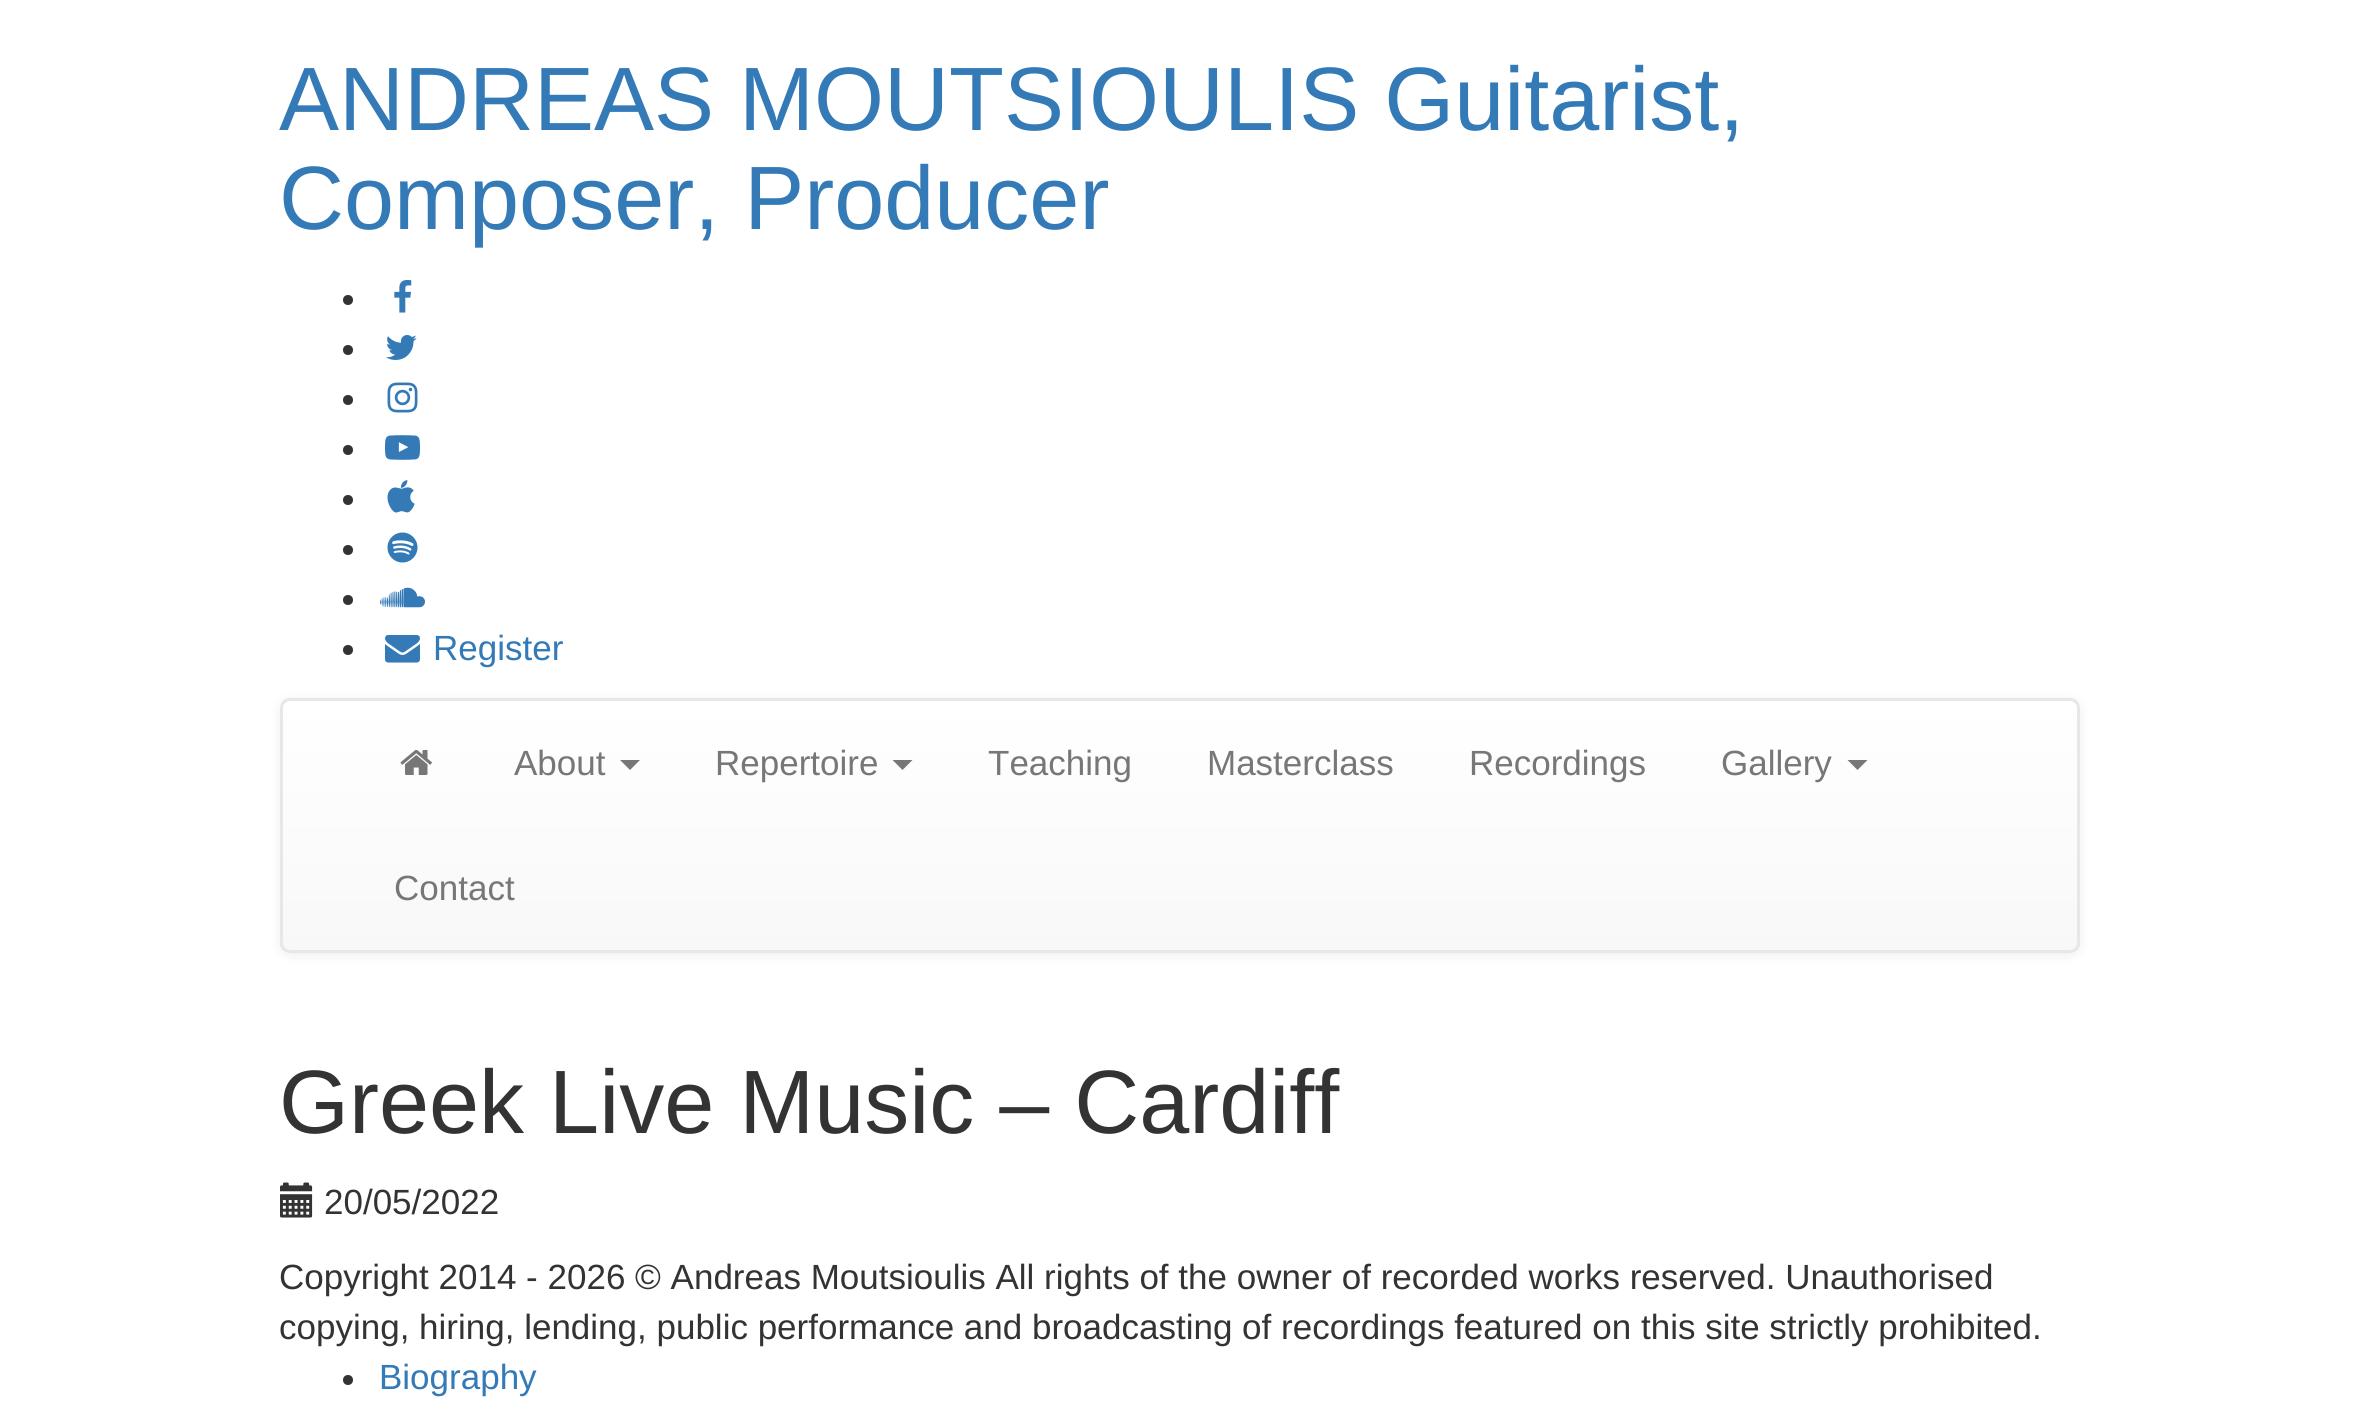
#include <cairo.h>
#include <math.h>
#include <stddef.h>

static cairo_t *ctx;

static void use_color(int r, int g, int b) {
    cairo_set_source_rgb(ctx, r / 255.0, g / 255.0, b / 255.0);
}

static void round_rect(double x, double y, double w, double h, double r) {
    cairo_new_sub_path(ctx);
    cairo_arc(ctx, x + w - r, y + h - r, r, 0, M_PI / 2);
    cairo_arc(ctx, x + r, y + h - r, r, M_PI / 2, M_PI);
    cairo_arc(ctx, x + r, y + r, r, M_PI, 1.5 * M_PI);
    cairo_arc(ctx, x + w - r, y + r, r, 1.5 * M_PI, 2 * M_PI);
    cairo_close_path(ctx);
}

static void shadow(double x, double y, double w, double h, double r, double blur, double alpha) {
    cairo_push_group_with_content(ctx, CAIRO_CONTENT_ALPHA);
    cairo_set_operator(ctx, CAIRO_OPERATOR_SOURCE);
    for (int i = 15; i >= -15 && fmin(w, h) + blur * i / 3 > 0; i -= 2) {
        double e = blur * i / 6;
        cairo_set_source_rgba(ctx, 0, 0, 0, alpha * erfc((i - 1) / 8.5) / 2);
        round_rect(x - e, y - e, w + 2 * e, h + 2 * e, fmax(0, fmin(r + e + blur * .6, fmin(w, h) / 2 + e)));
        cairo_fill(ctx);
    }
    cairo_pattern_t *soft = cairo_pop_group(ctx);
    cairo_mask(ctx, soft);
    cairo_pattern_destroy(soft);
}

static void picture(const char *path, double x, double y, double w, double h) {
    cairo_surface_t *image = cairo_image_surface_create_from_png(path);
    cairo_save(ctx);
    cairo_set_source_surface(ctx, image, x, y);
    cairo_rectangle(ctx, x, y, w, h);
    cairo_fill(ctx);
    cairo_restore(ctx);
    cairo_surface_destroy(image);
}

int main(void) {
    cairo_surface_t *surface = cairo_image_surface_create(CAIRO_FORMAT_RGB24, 2356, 1423);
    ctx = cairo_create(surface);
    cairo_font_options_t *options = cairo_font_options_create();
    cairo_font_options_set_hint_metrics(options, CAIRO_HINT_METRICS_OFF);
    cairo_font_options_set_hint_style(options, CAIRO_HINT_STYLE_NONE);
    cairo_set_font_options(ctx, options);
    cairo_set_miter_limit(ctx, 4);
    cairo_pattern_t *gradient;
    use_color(255, 255, 255);
    cairo_paint(ctx);
    cairo_select_font_face(ctx, "Liberation Sans", CAIRO_FONT_SLANT_NORMAL, CAIRO_FONT_WEIGHT_NORMAL);
    cairo_set_font_size(ctx, 90);
    use_color(51, 122, 183);
    cairo_move_to(ctx, 279, 130);
    cairo_show_text(ctx, "ANDREAS MOUTSIOULIS Guitarist,");
    cairo_move_to(ctx, 279, 229);
    cairo_show_text(ctx, "Composer, Producer");
    use_color(51, 51, 51);
    cairo_new_path(ctx);
    cairo_arc(ctx, 348, 300, 5, 0, 2 * M_PI);
    cairo_fill(ctx);
    picture("img1.png", 394, 280, 18, 33);
    cairo_arc(ctx, 348, 350, 5, 0, 2 * M_PI);
    cairo_fill(ctx);
    picture("img2.png", 386, 335, 31, 25);
    cairo_arc(ctx, 348, 400, 5, 0, 2 * M_PI);
    cairo_fill(ctx);
    picture("img3.png", 387, 382, 31, 31);
    cairo_arc(ctx, 348, 450, 5, 0, 2 * M_PI);
    cairo_fill(ctx);
    picture("img4.png", 385, 435, 35, 25);
    cairo_arc(ctx, 348, 500, 5, 0, 2 * M_PI);
    cairo_fill(ctx);
    picture("img5.png", 387, 480, 28, 33);
    cairo_arc(ctx, 348, 550, 5, 0, 2 * M_PI);
    cairo_fill(ctx);
    picture("img6.png", 387, 532, 31, 31);
    cairo_arc(ctx, 348, 600, 5, 0, 2 * M_PI);
    cairo_fill(ctx);
    picture("img7.png", 380, 587, 45, 21);
    cairo_arc(ctx, 348, 650, 5, 0, 2 * M_PI);
    cairo_fill(ctx);
    picture("img8.png", 385, 635, 35, 28);
    cairo_set_font_size(ctx, 35);
    use_color(51, 122, 183);
    cairo_move_to(ctx, 433, 660);
    cairo_show_text(ctx, "Register");
    use_color(0, 0, 0);
    shadow(280, 700, 1800, 255, 10, 6, 0.07);
    cairo_save(ctx);
    round_rect(280, 698, 1800, 255, 10);
    cairo_clip(ctx);
    gradient = cairo_pattern_create_linear(1180, 700, 1180, 950);
    cairo_pattern_add_color_stop_rgba(gradient, 0, 1, 1, 1, 1);
    cairo_pattern_add_color_stop_rgba(gradient, 1, 0.973, 0.973, 0.973, 1);
    cairo_set_source(ctx, gradient);
    cairo_pattern_destroy(gradient);
    cairo_rectangle(ctx, 280, 700, 1800, 250);
    cairo_fill(ctx);
    cairo_restore(ctx);
    round_rect(281.5, 699.5, 1797, 252, 8.5);
    use_color(231, 231, 231);
    cairo_set_line_width(ctx, 3);
    cairo_stroke(ctx);
    picture("img9.png", 400, 750, 32, 25);
    use_color(119, 119, 119);
    cairo_move_to(ctx, 514, 775);
    cairo_show_text(ctx, "About");
    cairo_new_path(ctx);
    cairo_move_to(ctx, 620, 760);
    cairo_line_to(ctx, 640, 760);
    cairo_line_to(ctx, 630, 770);
    cairo_close_path(ctx);
    cairo_fill(ctx);
    cairo_move_to(ctx, 715, 775);
    cairo_show_text(ctx, "Repertoire");
    cairo_new_path(ctx);
    cairo_move_to(ctx, 892.5, 760);
    cairo_line_to(ctx, 912.5, 760);
    cairo_line_to(ctx, 902.5, 770);
    cairo_close_path(ctx);
    cairo_fill(ctx);
    cairo_move_to(ctx, 988, 775);
    cairo_show_text(ctx, "Teaching");
    cairo_move_to(ctx, 1207, 775);
    cairo_show_text(ctx, "Masterclass");
    cairo_move_to(ctx, 1469, 775);
    cairo_show_text(ctx, "Recordings");
    cairo_move_to(ctx, 1721, 775);
    cairo_show_text(ctx, "Gallery");
    cairo_new_path(ctx);
    cairo_move_to(ctx, 1847.5, 760);
    cairo_line_to(ctx, 1867.5, 760);
    cairo_line_to(ctx, 1857.5, 770);
    cairo_close_path(ctx);
    cairo_fill(ctx);
    cairo_move_to(ctx, 394, 900);
    cairo_show_text(ctx, "Contact");
    cairo_set_font_size(ctx, 90);
    use_color(51, 51, 51);
    cairo_move_to(ctx, 279, 1133);
    cairo_show_text(ctx, "Greek Live Music – Cardiff");
    picture("img10.png", 280, 1182, 33, 36);
    cairo_set_font_size(ctx, 35);
    cairo_move_to(ctx, 324, 1214);
    cairo_show_text(ctx, "20/05/2022");
    cairo_move_to(ctx, 279, 1289);
    cairo_show_text(ctx, "Copyright 2014 - 2026 © Andreas Moutsioulis All rights of the owner of recorded works reserved. Unauthorised");
    cairo_move_to(ctx, 279, 1339);
    cairo_show_text(ctx, "copying, hiring, lending, public performance and broadcasting of recordings featured on this site strictly prohibited.");
    cairo_new_path(ctx);
    cairo_arc(ctx, 348, 1380, 5, 0, 2 * M_PI);
    cairo_fill(ctx);
    use_color(51, 122, 183);
    cairo_move_to(ctx, 379, 1389);
    cairo_show_text(ctx, "Biography");
    cairo_surface_write_to_png(surface, "result.png");
    cairo_font_options_destroy(options);
    cairo_destroy(ctx);
    cairo_surface_destroy(surface);
    return 0;
}
